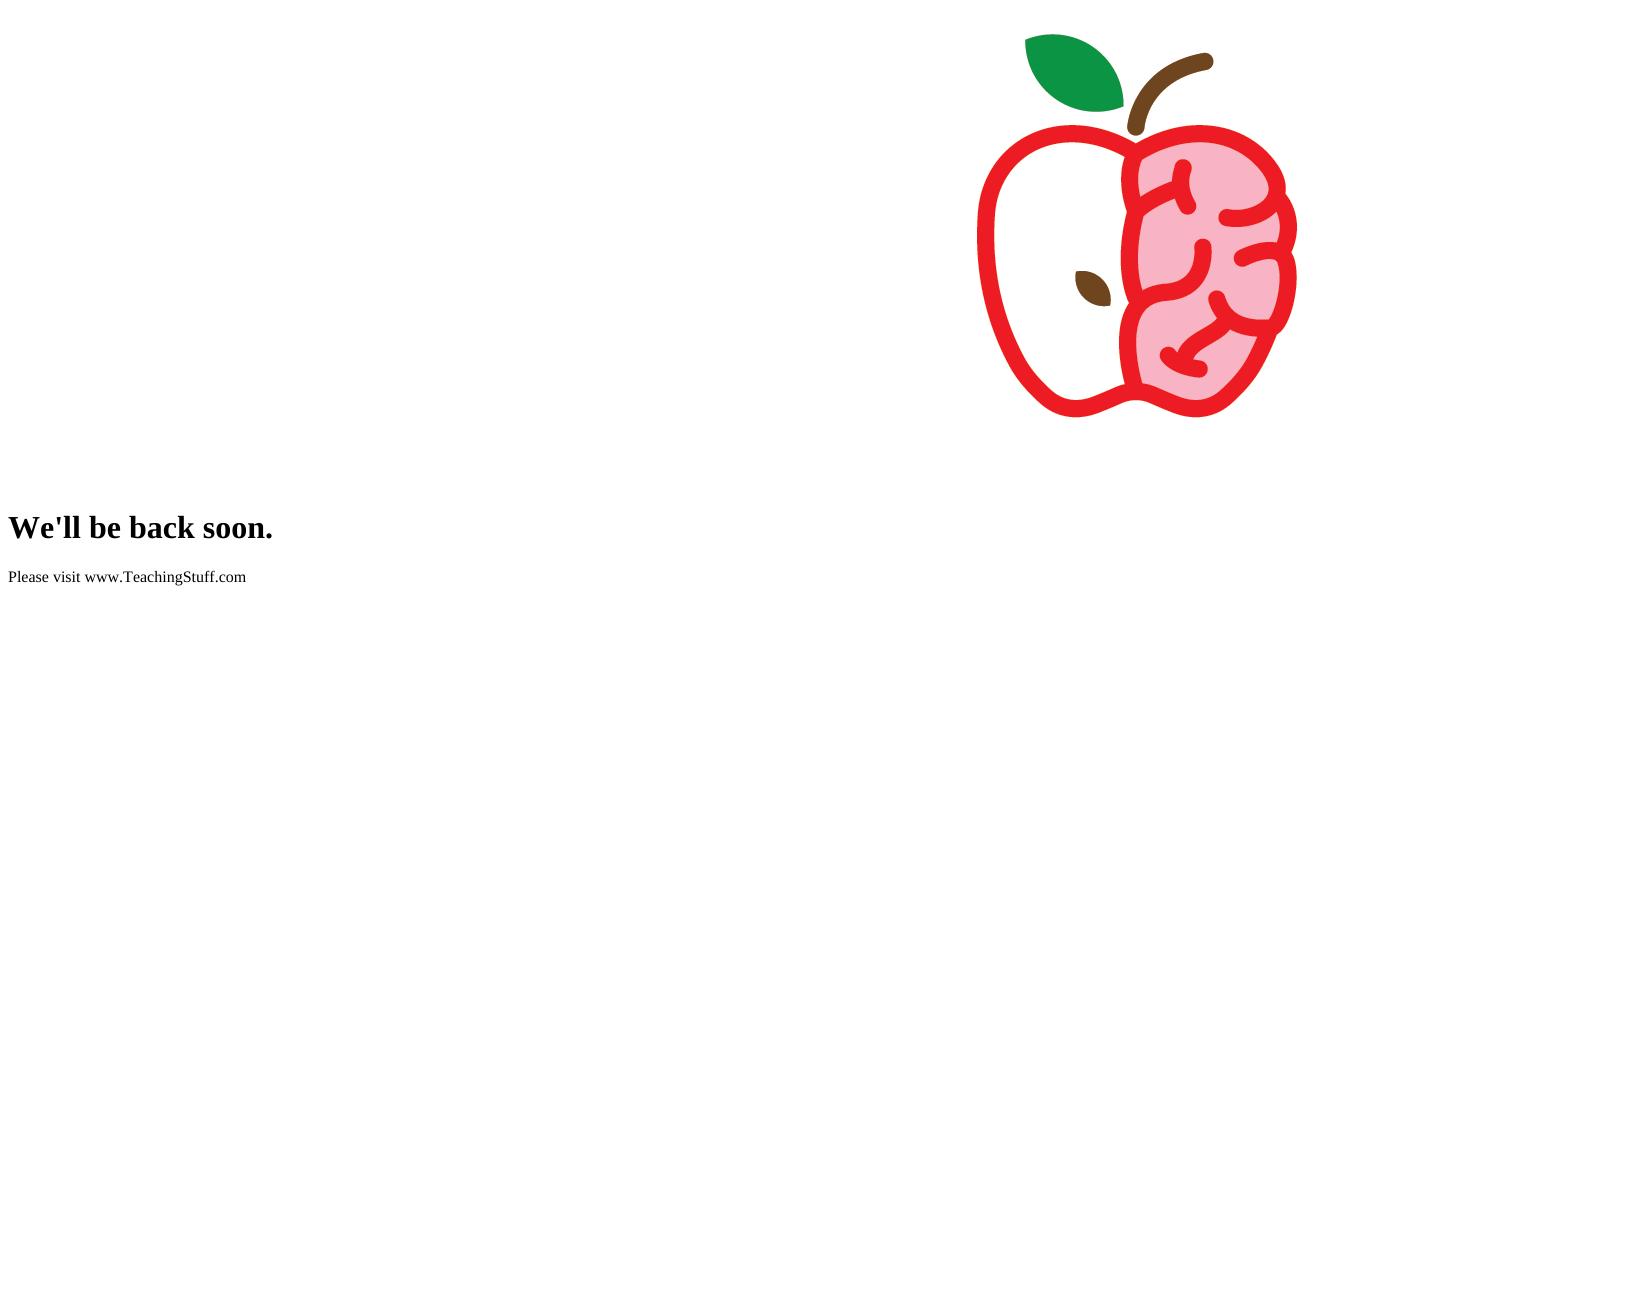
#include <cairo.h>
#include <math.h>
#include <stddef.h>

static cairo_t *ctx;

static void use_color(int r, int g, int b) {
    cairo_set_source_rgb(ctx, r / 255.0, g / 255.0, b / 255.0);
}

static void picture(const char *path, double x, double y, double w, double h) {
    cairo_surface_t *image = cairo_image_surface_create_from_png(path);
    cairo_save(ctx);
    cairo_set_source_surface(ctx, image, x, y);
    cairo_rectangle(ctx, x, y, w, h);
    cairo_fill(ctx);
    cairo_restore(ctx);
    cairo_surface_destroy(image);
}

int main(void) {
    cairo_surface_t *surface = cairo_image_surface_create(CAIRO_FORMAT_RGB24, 1648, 1298);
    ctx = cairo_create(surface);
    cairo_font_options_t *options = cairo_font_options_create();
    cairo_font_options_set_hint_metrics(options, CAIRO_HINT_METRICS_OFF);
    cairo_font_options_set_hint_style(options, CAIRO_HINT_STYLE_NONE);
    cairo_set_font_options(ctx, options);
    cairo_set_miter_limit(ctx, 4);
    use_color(255, 255, 255);
    cairo_paint(ctx);
    picture("img1.png", 977, 34, 320, 384);
    cairo_select_font_face(ctx, "Liberation Serif", CAIRO_FONT_SLANT_NORMAL, CAIRO_FONT_WEIGHT_BOLD);
    cairo_set_font_size(ctx, 32);
    use_color(0, 0, 0);
    cairo_move_to(ctx, 8, 538);
    cairo_show_text(ctx, "We'll be back soon.");
    cairo_select_font_face(ctx, "Liberation Serif", CAIRO_FONT_SLANT_NORMAL, CAIRO_FONT_WEIGHT_NORMAL);
    cairo_set_font_size(ctx, 16);
    cairo_move_to(ctx, 8, 582);
    cairo_show_text(ctx, "Please visit www.TeachingStuff.com");
    cairo_surface_write_to_png(surface, "result.png");
    cairo_font_options_destroy(options);
    cairo_destroy(ctx);
    cairo_surface_destroy(surface);
    return 0;
}
